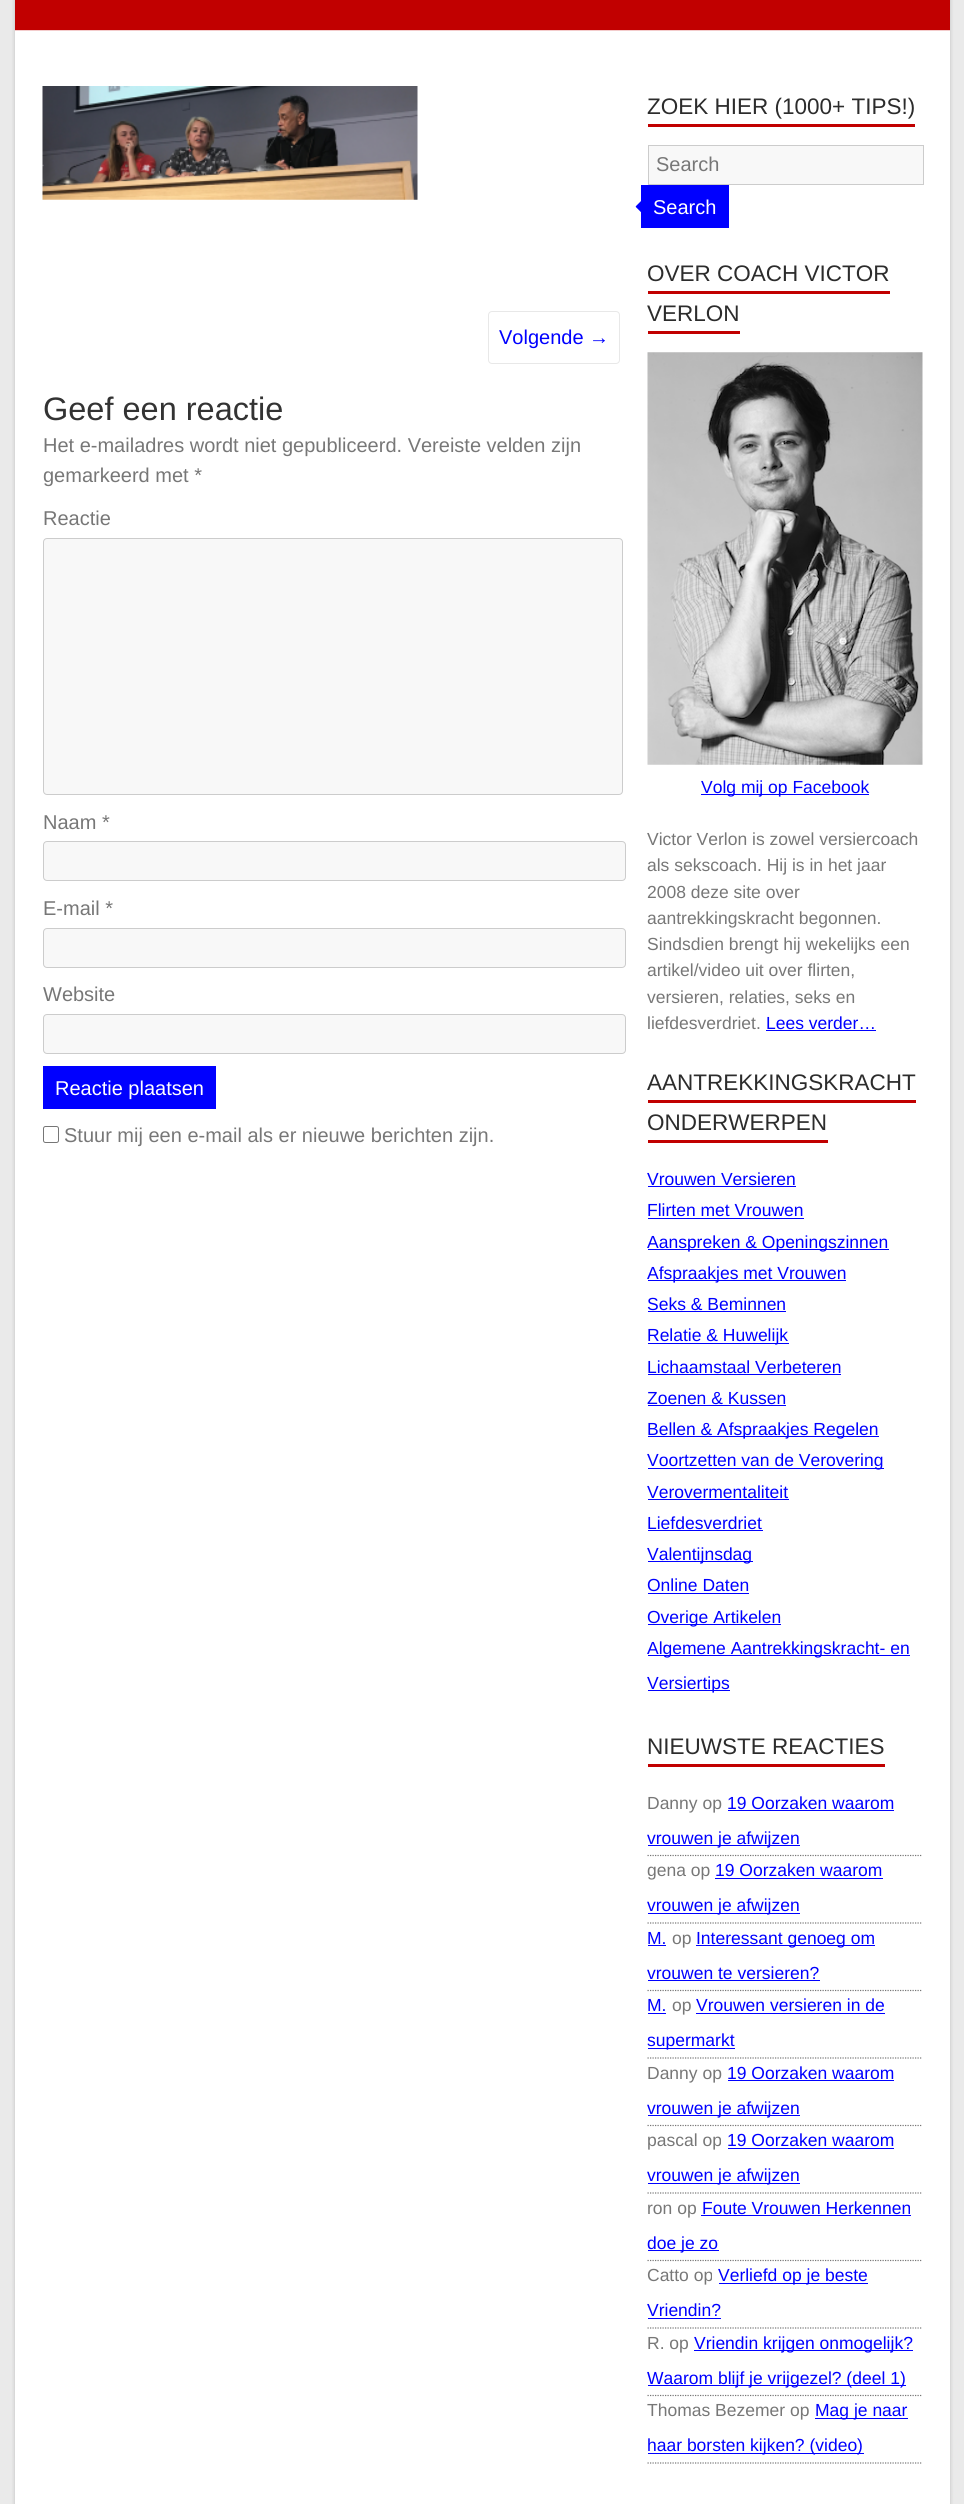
#include <cairo.h>
#include <math.h>
#include <stddef.h>

static cairo_t *ctx;

static void use_color(int r, int g, int b) {
    cairo_set_source_rgb(ctx, r / 255.0, g / 255.0, b / 255.0);
}

static void round_rect(double x, double y, double w, double h, double r) {
    cairo_new_sub_path(ctx);
    cairo_arc(ctx, x + w - r, y + h - r, r, 0, M_PI / 2);
    cairo_arc(ctx, x + r, y + h - r, r, M_PI / 2, M_PI);
    cairo_arc(ctx, x + r, y + r, r, M_PI, 1.5 * M_PI);
    cairo_arc(ctx, x + w - r, y + r, r, 1.5 * M_PI, 2 * M_PI);
    cairo_close_path(ctx);
}

static void shadow(double x, double y, double w, double h, double r, double blur, double alpha) {
    cairo_push_group_with_content(ctx, CAIRO_CONTENT_ALPHA);
    cairo_set_operator(ctx, CAIRO_OPERATOR_SOURCE);
    for (int i = 15; i >= -15 && fmin(w, h) + blur * i / 3 > 0; i -= 2) {
        double e = blur * i / 6;
        cairo_set_source_rgba(ctx, 0, 0, 0, alpha * erfc((i - 1) / 8.5) / 2);
        round_rect(x - e, y - e, w + 2 * e, h + 2 * e, fmax(0, fmin(r + e + blur * .6, fmin(w, h) / 2 + e)));
        cairo_fill(ctx);
    }
    cairo_pattern_t *soft = cairo_pop_group(ctx);
    cairo_mask(ctx, soft);
    cairo_pattern_destroy(soft);
}

static void picture(const char *path, double x, double y, double w, double h) {
    cairo_surface_t *image = cairo_image_surface_create_from_png(path);
    cairo_save(ctx);
    cairo_set_source_surface(ctx, image, x, y);
    cairo_rectangle(ctx, x, y, w, h);
    cairo_fill(ctx);
    cairo_restore(ctx);
    cairo_surface_destroy(image);
}

int main(void) {
    cairo_surface_t *surface = cairo_image_surface_create(CAIRO_FORMAT_RGB24, 964, 2504);
    ctx = cairo_create(surface);
    cairo_font_options_t *options = cairo_font_options_create();
    cairo_font_options_set_hint_metrics(options, CAIRO_HINT_METRICS_OFF);
    cairo_font_options_set_hint_style(options, CAIRO_HINT_STYLE_NONE);
    cairo_set_font_options(ctx, options);
    cairo_set_miter_limit(ctx, 4);
    use_color(234, 234, 234);
    cairo_paint(ctx);
    use_color(0, 0, 0);
    shadow(15, -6, 935, 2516, 0, 2, 0.2);
    use_color(255, 255, 255);
    cairo_rectangle(ctx, 15, 31, 935, 2473);
    cairo_fill(ctx);
    use_color(193, 0, 0);
    cairo_rectangle(ctx, 15, 0, 935, 30);
    cairo_fill(ctx);
    use_color(243, 204, 204);
    cairo_rectangle(ctx, 15, 30, 935, 1);
    cairo_fill(ctx);
    picture("img1.png", 42, 86, 376, 114);
    round_rect(488.5, 311.5, 131, 52, 3.5);
    use_color(232, 232, 232);
    cairo_set_line_width(ctx, 1);
    cairo_stroke(ctx);
    cairo_select_font_face(ctx, "Liberation Sans", CAIRO_FONT_SLANT_NORMAL, CAIRO_FONT_WEIGHT_NORMAL);
    cairo_set_font_size(ctx, 20);
    use_color(0, 0, 255);
    cairo_move_to(ctx, 499, 344);
    cairo_show_text(ctx, "Volgende →");
    cairo_set_font_size(ctx, 32.5);
    use_color(51, 51, 51);
    cairo_move_to(ctx, 43, 420);
    cairo_show_text(ctx, "Geef een reactie");
    cairo_set_font_size(ctx, 20);
    use_color(119, 119, 119);
    cairo_move_to(ctx, 43, 452);
    cairo_show_text(ctx, "Het e-mailadres wordt niet gepubliceerd. Vereiste velden zijn");
    cairo_move_to(ctx, 43, 482);
    cairo_show_text(ctx, "gemarkeerd met *");
    cairo_move_to(ctx, 43, 525);
    cairo_show_text(ctx, "Reactie");
    use_color(248, 248, 248);
    round_rect(43.5, 538.5, 579, 256, 3.5);
    cairo_fill_preserve(ctx);
    use_color(204, 204, 204);
    cairo_stroke(ctx);
    use_color(119, 119, 119);
    cairo_move_to(ctx, 43, 829);
    cairo_show_text(ctx, "Naam *");
    use_color(248, 248, 248);
    round_rect(43.5, 841.5, 582, 39, 3.5);
    cairo_fill_preserve(ctx);
    use_color(204, 204, 204);
    cairo_stroke(ctx);
    use_color(119, 119, 119);
    cairo_move_to(ctx, 43, 915);
    cairo_show_text(ctx, "E-mail *");
    use_color(248, 248, 248);
    round_rect(43.5, 928.5, 582, 39, 3.5);
    cairo_fill_preserve(ctx);
    use_color(204, 204, 204);
    cairo_stroke(ctx);
    use_color(119, 119, 119);
    cairo_move_to(ctx, 43, 1001);
    cairo_show_text(ctx, "Website");
    use_color(248, 248, 248);
    round_rect(43.5, 1014.5, 582, 39, 3.5);
    cairo_fill_preserve(ctx);
    use_color(204, 204, 204);
    cairo_stroke(ctx);
    use_color(0, 0, 255);
    cairo_rectangle(ctx, 43, 1066, 173, 43);
    cairo_fill(ctx);
    use_color(255, 255, 255);
    cairo_move_to(ctx, 55, 1095);
    cairo_show_text(ctx, "Reactie plaatsen");
    round_rect(43.5, 1126.5, 15, 16, 2);
    use_color(118, 118, 118);
    cairo_stroke(ctx);
    use_color(119, 119, 119);
    cairo_move_to(ctx, 64, 1142);
    cairo_show_text(ctx, "Stuur mij een e-mail als er nieuwe berichten zijn.");
    cairo_set_font_size(ctx, 22.5);
    use_color(44, 44, 44);
    cairo_move_to(ctx, 647, 114);
    cairo_show_text(ctx, "ZOEK HIER (1000+ TIPS!)");
    use_color(193, 0, 0);
    cairo_rectangle(ctx, 648, 124, 267, 3);
    cairo_fill(ctx);
    use_color(248, 248, 248);
    cairo_rectangle(ctx, 648.5, 145.5, 275, 39);
    cairo_fill_preserve(ctx);
    use_color(204, 204, 204);
    cairo_stroke(ctx);
    cairo_set_font_size(ctx, 20);
    use_color(119, 119, 119);
    cairo_move_to(ctx, 656, 171);
    cairo_show_text(ctx, "Search");
    use_color(0, 0, 255);
    cairo_rectangle(ctx, 641, 185, 88, 43);
    cairo_fill(ctx);
    picture("img2.png", 635, 201, 6, 11);
    use_color(255, 255, 255);
    cairo_move_to(ctx, 653, 214);
    cairo_show_text(ctx, "Search");
    cairo_set_font_size(ctx, 22.5);
    use_color(44, 44, 44);
    cairo_move_to(ctx, 647, 281);
    cairo_show_text(ctx, "OVER COACH VICTOR");
    use_color(193, 0, 0);
    cairo_rectangle(ctx, 648, 291, 242, 3);
    cairo_fill(ctx);
    use_color(44, 44, 44);
    cairo_move_to(ctx, 647, 321);
    cairo_show_text(ctx, "VERLON");
    use_color(193, 0, 0);
    cairo_rectangle(ctx, 648, 331, 92, 3);
    cairo_fill(ctx);
    picture("img3.png", 647, 352, 276, 413);
    use_color(0, 0, 255);
    cairo_rectangle(ctx, 701, 794, 168, 1);
    cairo_fill(ctx);
    cairo_set_font_size(ctx, 17.5);
    cairo_move_to(ctx, 701, 793);
    cairo_show_text(ctx, "Volg mij op Facebook");
    use_color(119, 119, 119);
    cairo_move_to(ctx, 647, 845);
    cairo_show_text(ctx, "Victor Verlon is zowel versiercoach");
    cairo_move_to(ctx, 647, 871);
    cairo_show_text(ctx, "als sekscoach. Hij is in het jaar");
    cairo_move_to(ctx, 647, 898);
    cairo_show_text(ctx, "2008 deze site over");
    cairo_move_to(ctx, 647, 924);
    cairo_show_text(ctx, "aantrekkingskracht begonnen.");
    cairo_move_to(ctx, 647, 950);
    cairo_show_text(ctx, "Sindsdien brengt hij wekelijks een");
    cairo_move_to(ctx, 647, 976);
    cairo_show_text(ctx, "artikel/video uit over flirten,");
    cairo_move_to(ctx, 647, 1003);
    cairo_show_text(ctx, "versieren, relaties, seks en");
    cairo_move_to(ctx, 647, 1029);
    cairo_show_text(ctx, "liefdesverdriet.");
    use_color(0, 0, 255);
    cairo_move_to(ctx, 766, 1029);
    cairo_show_text(ctx, "Lees verder…");
    cairo_rectangle(ctx, 766, 1030, 110, 1);
    cairo_fill(ctx);
    cairo_set_font_size(ctx, 22.5);
    use_color(44, 44, 44);
    cairo_move_to(ctx, 647, 1090);
    cairo_show_text(ctx, "AANTREKKINGSKRACHT");
    use_color(193, 0, 0);
    cairo_rectangle(ctx, 648, 1100, 268, 3);
    cairo_fill(ctx);
    use_color(44, 44, 44);
    cairo_move_to(ctx, 647, 1130);
    cairo_show_text(ctx, "ONDERWERPEN");
    use_color(193, 0, 0);
    cairo_rectangle(ctx, 648, 1140, 180, 3);
    cairo_fill(ctx);
    cairo_set_font_size(ctx, 17.5);
    use_color(0, 0, 255);
    cairo_move_to(ctx, 647, 1185);
    cairo_show_text(ctx, "Vrouwen Versieren");
    cairo_rectangle(ctx, 648, 1186, 148, 1);
    cairo_fill(ctx);
    cairo_move_to(ctx, 647, 1216);
    cairo_show_text(ctx, "Flirten met Vrouwen");
    cairo_rectangle(ctx, 648, 1218, 156, 1);
    cairo_fill(ctx);
    cairo_rectangle(ctx, 648, 1249, 241, 1);
    cairo_fill(ctx);
    cairo_move_to(ctx, 647, 1248);
    cairo_show_text(ctx, "Aanspreken & Openingszinnen");
    cairo_rectangle(ctx, 648, 1280, 198, 1);
    cairo_fill(ctx);
    cairo_move_to(ctx, 647, 1279);
    cairo_show_text(ctx, "Afspraakjes met Vrouwen");
    cairo_move_to(ctx, 647, 1310);
    cairo_show_text(ctx, "Seks & Beminnen");
    cairo_rectangle(ctx, 648, 1311, 138, 1);
    cairo_fill(ctx);
    cairo_rectangle(ctx, 648, 1343, 141, 1);
    cairo_fill(ctx);
    cairo_move_to(ctx, 647, 1341);
    cairo_show_text(ctx, "Relatie & Huwelijk");
    cairo_move_to(ctx, 647, 1373);
    cairo_show_text(ctx, "Lichaamstaal Verbeteren");
    cairo_rectangle(ctx, 648, 1374, 193, 1);
    cairo_fill(ctx);
    cairo_move_to(ctx, 647, 1404);
    cairo_show_text(ctx, "Zoenen & Kussen");
    cairo_rectangle(ctx, 648, 1405, 138, 1);
    cairo_fill(ctx);
    cairo_rectangle(ctx, 648, 1436, 231, 1);
    cairo_fill(ctx);
    cairo_move_to(ctx, 647, 1435);
    cairo_show_text(ctx, "Bellen & Afspraakjes Regelen");
    cairo_rectangle(ctx, 648, 1468, 236, 1);
    cairo_fill(ctx);
    cairo_move_to(ctx, 647, 1466);
    cairo_show_text(ctx, "Voortzetten van de Verovering");
    cairo_move_to(ctx, 647, 1498);
    cairo_show_text(ctx, "Verovermentaliteit");
    cairo_rectangle(ctx, 648, 1499, 141, 1);
    cairo_fill(ctx);
    cairo_move_to(ctx, 647, 1529);
    cairo_show_text(ctx, "Liefdesverdriet");
    cairo_rectangle(ctx, 648, 1530, 115, 1);
    cairo_fill(ctx);
    cairo_rectangle(ctx, 648, 1561, 105, 1);
    cairo_fill(ctx);
    cairo_move_to(ctx, 647, 1560);
    cairo_show_text(ctx, "Valentijnsdag");
    cairo_move_to(ctx, 647, 1591);
    cairo_show_text(ctx, "Online Daten");
    cairo_rectangle(ctx, 648, 1593, 101, 1);
    cairo_fill(ctx);
    cairo_rectangle(ctx, 648, 1624, 133, 1);
    cairo_fill(ctx);
    cairo_move_to(ctx, 647, 1623);
    cairo_show_text(ctx, "Overige Artikelen");
    cairo_rectangle(ctx, 648, 1655, 262, 1);
    cairo_fill(ctx);
    cairo_move_to(ctx, 647, 1654);
    cairo_show_text(ctx, "Algemene Aantrekkingskracht- en");
    cairo_rectangle(ctx, 648, 1690, 82, 1);
    cairo_fill(ctx);
    cairo_move_to(ctx, 647, 1689);
    cairo_show_text(ctx, "Versiertips");
    cairo_set_font_size(ctx, 22.5);
    use_color(44, 44, 44);
    cairo_move_to(ctx, 647, 1754);
    cairo_show_text(ctx, "NIEUWSTE REACTIES");
    use_color(193, 0, 0);
    cairo_rectangle(ctx, 648, 1764, 237, 3);
    cairo_fill(ctx);
    cairo_new_path(ctx);
    cairo_move_to(ctx, 647.5, 1855.5);
    cairo_line_to(ctx, 922.5, 1855.5);
    use_color(119, 119, 119);
    cairo_set_line_width(ctx, 1.2);
    cairo_set_dash(ctx, (double[]){1.25, 1.25}, 2, 0);
    cairo_stroke(ctx);
    cairo_set_font_size(ctx, 17.5);
    cairo_move_to(ctx, 647, 1809);
    cairo_show_text(ctx, "Danny op");
    use_color(0, 0, 255);
    cairo_move_to(ctx, 727, 1809);
    cairo_show_text(ctx, "19 Oorzaken waarom");
    cairo_rectangle(ctx, 728, 1810, 166, 1);
    cairo_fill(ctx);
    cairo_rectangle(ctx, 648, 1845, 152, 1);
    cairo_fill(ctx);
    cairo_move_to(ctx, 647, 1844);
    cairo_show_text(ctx, "vrouwen je afwijzen");
    cairo_new_path(ctx);
    cairo_move_to(ctx, 647.5, 1923);
    cairo_line_to(ctx, 922.5, 1923);
    use_color(119, 119, 119);
    cairo_stroke(ctx);
    cairo_move_to(ctx, 647, 1876);
    cairo_show_text(ctx, "gena op");
    use_color(0, 0, 255);
    cairo_move_to(ctx, 715, 1876);
    cairo_show_text(ctx, "19 Oorzaken waarom");
    cairo_rectangle(ctx, 715, 1878, 168, 1);
    cairo_fill(ctx);
    cairo_rectangle(ctx, 648, 1913, 152, 1);
    cairo_fill(ctx);
    cairo_move_to(ctx, 647, 1911);
    cairo_show_text(ctx, "vrouwen je afwijzen");
    cairo_new_path(ctx);
    cairo_move_to(ctx, 647.5, 1990.5);
    cairo_line_to(ctx, 922.5, 1990.5);
    use_color(119, 119, 119);
    cairo_stroke(ctx);
    use_color(0, 0, 255);
    cairo_move_to(ctx, 647, 1944);
    cairo_show_text(ctx, "M.");
    cairo_rectangle(ctx, 648, 1945, 18, 1);
    cairo_fill(ctx);
    use_color(119, 119, 119);
    cairo_move_to(ctx, 672, 1944);
    cairo_show_text(ctx, "op");
    use_color(0, 0, 255);
    cairo_rectangle(ctx, 696, 1945, 179, 1);
    cairo_fill(ctx);
    cairo_move_to(ctx, 696, 1944);
    cairo_show_text(ctx, "Interessant genoeg om");
    cairo_move_to(ctx, 647, 1979);
    cairo_show_text(ctx, "vrouwen te versieren?");
    cairo_rectangle(ctx, 648, 1980, 172, 1);
    cairo_fill(ctx);
    cairo_new_path(ctx);
    cairo_move_to(ctx, 647.5, 2058);
    cairo_line_to(ctx, 922.5, 2058);
    use_color(119, 119, 119);
    cairo_stroke(ctx);
    use_color(0, 0, 255);
    cairo_move_to(ctx, 647, 2011);
    cairo_show_text(ctx, "M.");
    cairo_rectangle(ctx, 648, 2013, 18, 1);
    cairo_fill(ctx);
    use_color(119, 119, 119);
    cairo_move_to(ctx, 672, 2011);
    cairo_show_text(ctx, "op");
    use_color(0, 0, 255);
    cairo_move_to(ctx, 696, 2011);
    cairo_show_text(ctx, "Vrouwen versieren in de");
    cairo_rectangle(ctx, 696, 2013, 189, 1);
    cairo_fill(ctx);
    cairo_rectangle(ctx, 648, 2048, 87, 1);
    cairo_fill(ctx);
    cairo_move_to(ctx, 647, 2046);
    cairo_show_text(ctx, "supermarkt");
    cairo_new_path(ctx);
    cairo_move_to(ctx, 647.5, 2125.5);
    cairo_line_to(ctx, 922.5, 2125.5);
    use_color(119, 119, 119);
    cairo_stroke(ctx);
    cairo_move_to(ctx, 647, 2079);
    cairo_show_text(ctx, "Danny op");
    use_color(0, 0, 255);
    cairo_move_to(ctx, 727, 2079);
    cairo_show_text(ctx, "19 Oorzaken waarom");
    cairo_rectangle(ctx, 728, 2080, 166, 1);
    cairo_fill(ctx);
    cairo_rectangle(ctx, 648, 2115, 152, 1);
    cairo_fill(ctx);
    cairo_move_to(ctx, 647, 2114);
    cairo_show_text(ctx, "vrouwen je afwijzen");
    cairo_new_path(ctx);
    cairo_move_to(ctx, 647.5, 2193);
    cairo_line_to(ctx, 922.5, 2193);
    use_color(119, 119, 119);
    cairo_stroke(ctx);
    cairo_move_to(ctx, 647, 2146);
    cairo_show_text(ctx, "pascal op");
    use_color(0, 0, 255);
    cairo_move_to(ctx, 727, 2146);
    cairo_show_text(ctx, "19 Oorzaken waarom");
    cairo_rectangle(ctx, 728, 2148, 166, 1);
    cairo_fill(ctx);
    cairo_rectangle(ctx, 648, 2183, 152, 1);
    cairo_fill(ctx);
    cairo_move_to(ctx, 647, 2181);
    cairo_show_text(ctx, "vrouwen je afwijzen");
    cairo_new_path(ctx);
    cairo_move_to(ctx, 647.5, 2260.5);
    cairo_line_to(ctx, 922.5, 2260.5);
    use_color(119, 119, 119);
    cairo_stroke(ctx);
    cairo_move_to(ctx, 647, 2214);
    cairo_show_text(ctx, "ron op");
    use_color(0, 0, 255);
    cairo_move_to(ctx, 702, 2214);
    cairo_show_text(ctx, "Foute Vrouwen Herkennen");
    cairo_rectangle(ctx, 701, 2215, 210, 1);
    cairo_fill(ctx);
    cairo_rectangle(ctx, 648, 2250, 71, 1);
    cairo_fill(ctx);
    cairo_move_to(ctx, 647, 2249);
    cairo_show_text(ctx, "doe je zo");
    cairo_new_path(ctx);
    cairo_move_to(ctx, 647.5, 2328);
    cairo_line_to(ctx, 922.5, 2328);
    use_color(119, 119, 119);
    cairo_stroke(ctx);
    cairo_move_to(ctx, 647, 2281);
    cairo_show_text(ctx, "Catto op");
    use_color(0, 0, 255);
    cairo_rectangle(ctx, 719, 2283, 149, 1);
    cairo_fill(ctx);
    cairo_move_to(ctx, 718, 2281);
    cairo_show_text(ctx, "Verliefd op je beste");
    cairo_move_to(ctx, 647, 2316);
    cairo_show_text(ctx, "Vriendin?");
    cairo_rectangle(ctx, 648, 2318, 73, 1);
    cairo_fill(ctx);
    cairo_new_path(ctx);
    cairo_move_to(ctx, 647.5, 2395.5);
    cairo_line_to(ctx, 922.5, 2395.5);
    use_color(119, 119, 119);
    cairo_stroke(ctx);
    cairo_move_to(ctx, 647, 2349);
    cairo_show_text(ctx, "R. op");
    use_color(0, 0, 255);
    cairo_rectangle(ctx, 694, 2350, 219, 1);
    cairo_fill(ctx);
    cairo_move_to(ctx, 694, 2349);
    cairo_show_text(ctx, "Vriendin krijgen onmogelijk?");
    cairo_rectangle(ctx, 648, 2385, 258, 1);
    cairo_fill(ctx);
    cairo_move_to(ctx, 647, 2384);
    cairo_show_text(ctx, "Waarom blijf je vrijgezel? (deel 1)");
    cairo_new_path(ctx);
    cairo_move_to(ctx, 647.5, 2463);
    cairo_line_to(ctx, 922.5, 2463);
    use_color(119, 119, 119);
    cairo_stroke(ctx);
    cairo_move_to(ctx, 647, 2416);
    cairo_show_text(ctx, "Thomas Bezemer op");
    use_color(0, 0, 255);
    cairo_rectangle(ctx, 815, 2418, 93, 1);
    cairo_fill(ctx);
    cairo_move_to(ctx, 815, 2416);
    cairo_show_text(ctx, "Mag je naar");
    cairo_rectangle(ctx, 648, 2453, 216, 1);
    cairo_fill(ctx);
    cairo_move_to(ctx, 647, 2451);
    cairo_show_text(ctx, "haar borsten kijken? (video)");
    cairo_surface_write_to_png(surface, "result.png");
    cairo_font_options_destroy(options);
    cairo_destroy(ctx);
    cairo_surface_destroy(surface);
    return 0;
}
